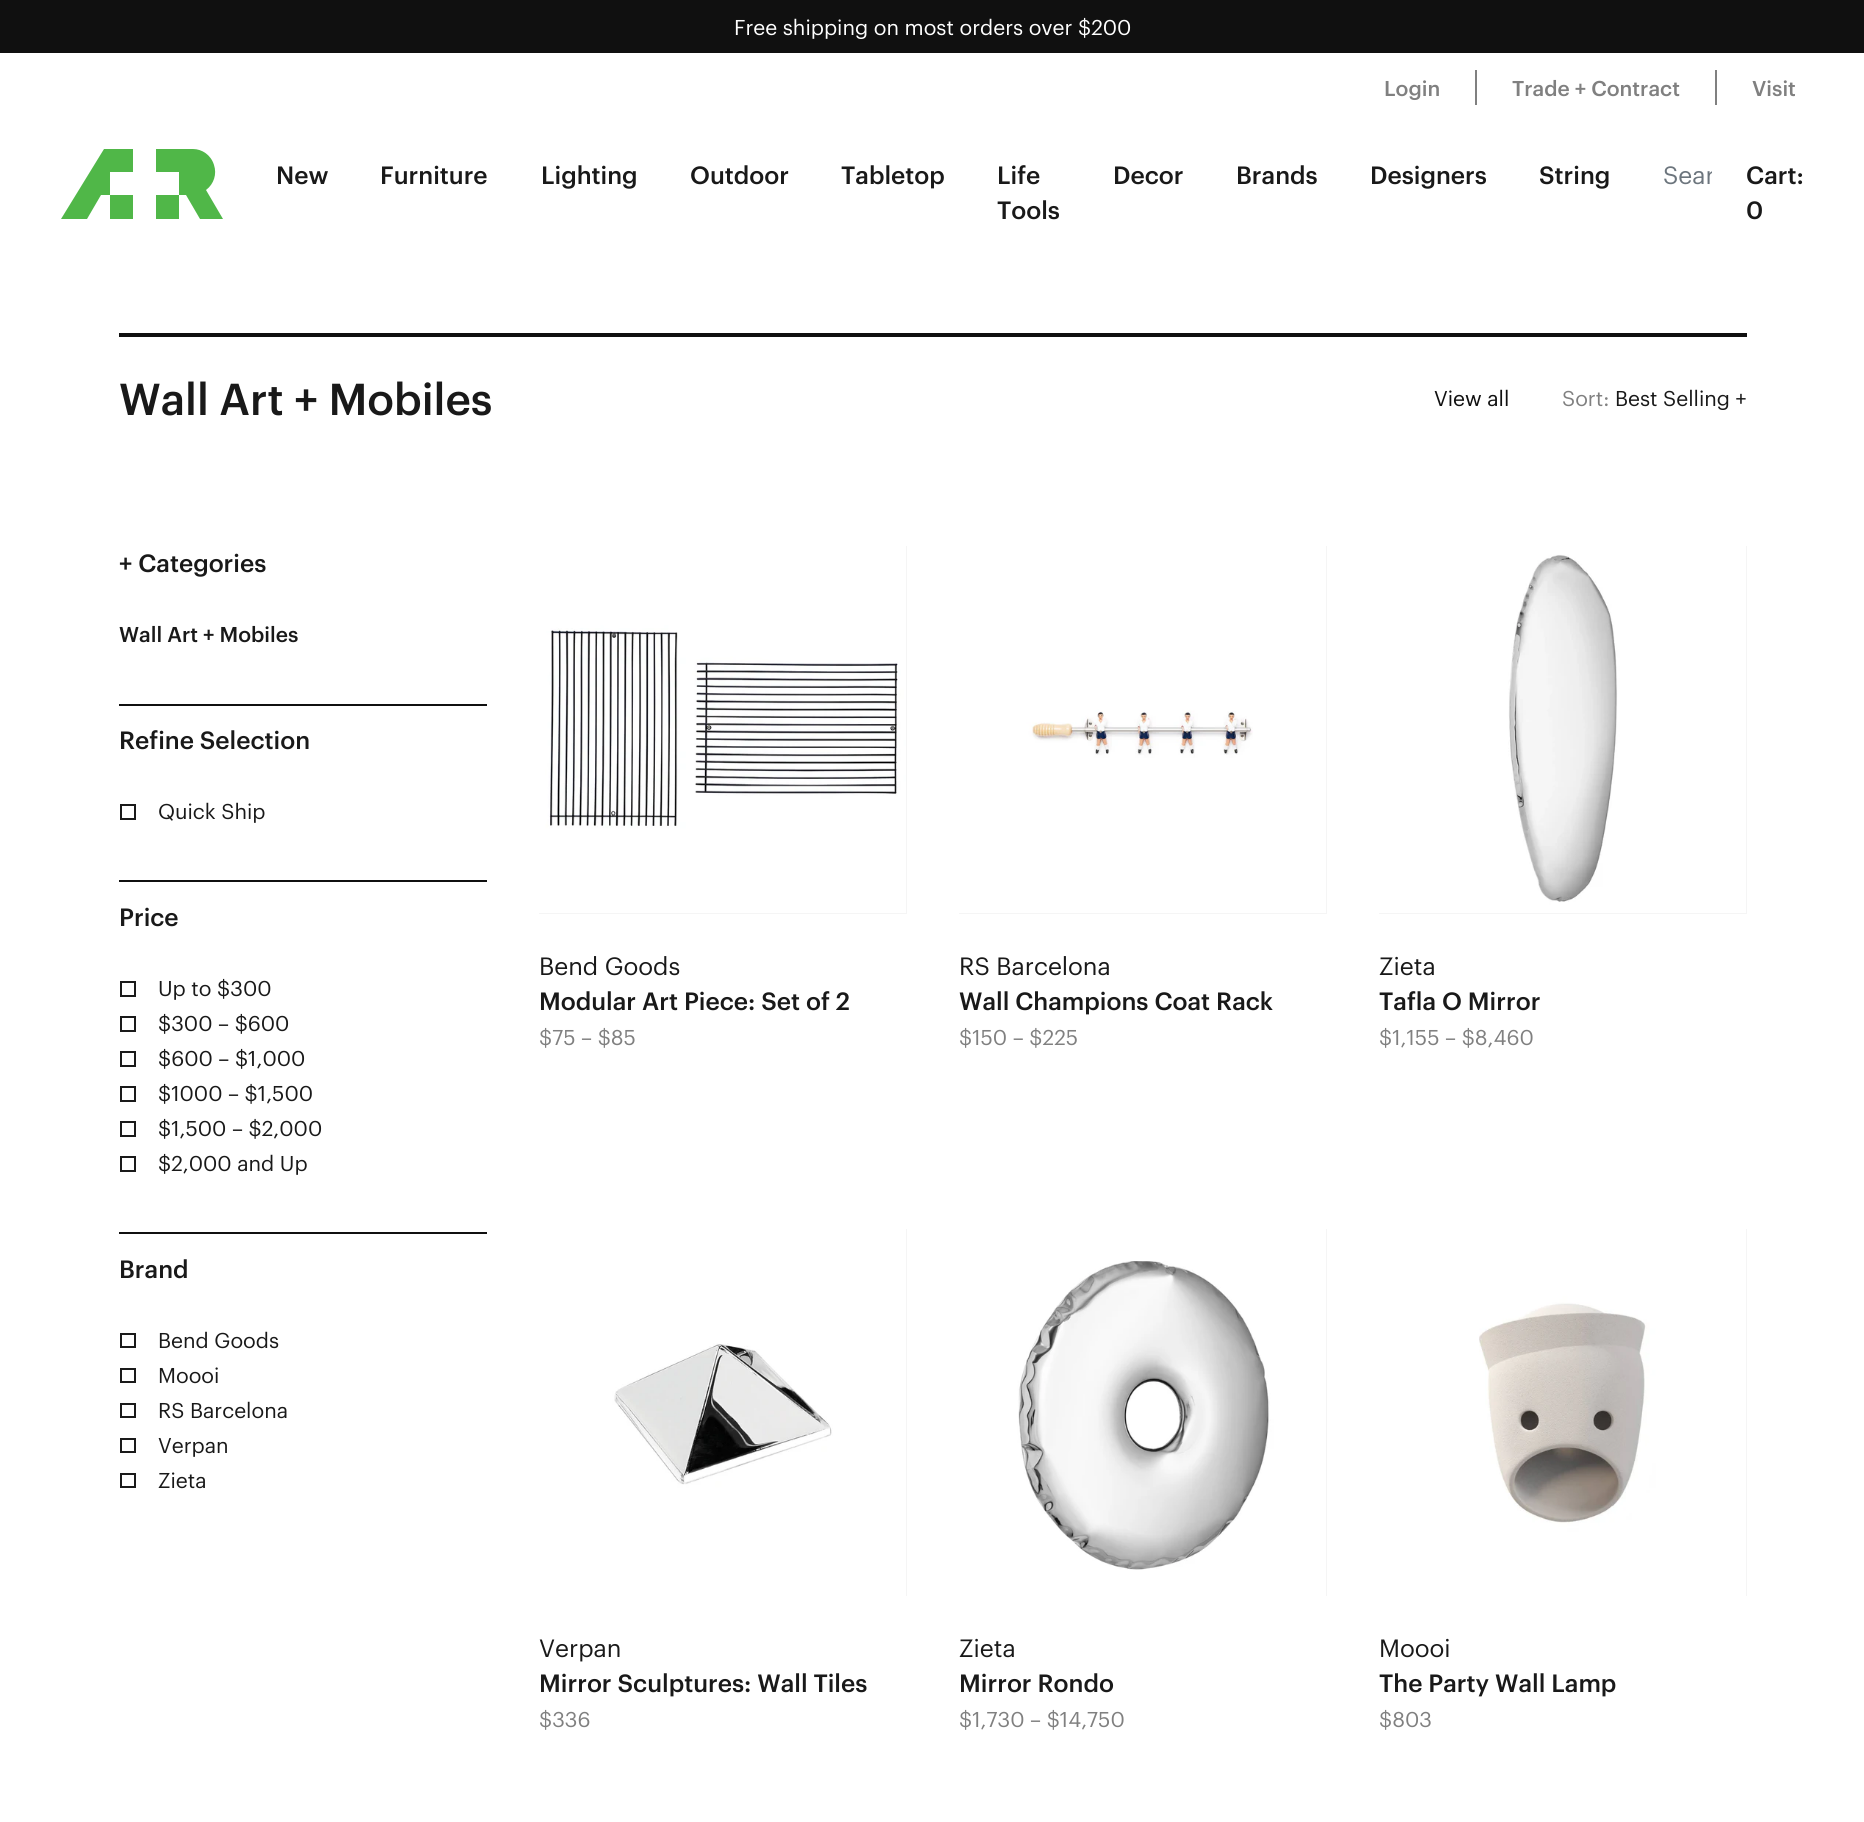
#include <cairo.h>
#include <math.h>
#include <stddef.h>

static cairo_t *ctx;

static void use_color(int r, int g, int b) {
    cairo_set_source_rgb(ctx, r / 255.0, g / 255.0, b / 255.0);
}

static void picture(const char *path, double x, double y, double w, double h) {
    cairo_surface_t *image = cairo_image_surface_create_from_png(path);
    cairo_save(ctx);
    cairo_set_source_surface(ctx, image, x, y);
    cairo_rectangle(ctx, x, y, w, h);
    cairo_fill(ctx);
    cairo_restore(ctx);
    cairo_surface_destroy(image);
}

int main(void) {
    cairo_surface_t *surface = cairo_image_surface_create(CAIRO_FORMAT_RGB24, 1864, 1822);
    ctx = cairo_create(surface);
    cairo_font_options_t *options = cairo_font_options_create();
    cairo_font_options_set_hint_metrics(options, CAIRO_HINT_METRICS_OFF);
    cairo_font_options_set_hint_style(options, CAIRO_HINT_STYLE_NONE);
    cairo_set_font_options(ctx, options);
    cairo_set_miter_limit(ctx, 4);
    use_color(255, 255, 255);
    cairo_paint(ctx);
    use_color(16, 16, 16);
    cairo_rectangle(ctx, 0, 0, 1864, 53);
    cairo_fill(ctx);
    cairo_select_font_face(ctx, "Graphik", CAIRO_FONT_SLANT_NORMAL, CAIRO_FONT_WEIGHT_NORMAL);
    cairo_set_font_size(ctx, 21);
    use_color(255, 255, 255);
    cairo_move_to(ctx, 734, 35);
    cairo_show_text(ctx, "Free shipping on most orders over $200");
    use_color(80, 183, 72);
    cairo_new_path(ctx);
    cairo_move_to(ctx, 110, 219);
    cairo_line_to(ctx, 110, 195);
    cairo_line_to(ctx, 133, 195);
    cairo_line_to(ctx, 133, 219);
    cairo_close_path(ctx);
    cairo_move_to(ctx, 156, 219);
    cairo_line_to(ctx, 179, 219);
    cairo_line_to(ctx, 179, 195);
    cairo_line_to(ctx, 156, 195);
    cairo_close_path(ctx);
    cairo_move_to(ctx, 104, 149);
    cairo_line_to(ctx, 61, 219);
    cairo_line_to(ctx, 87, 219);
    cairo_line_to(ctx, 101, 195);
    cairo_line_to(ctx, 110, 195);
    cairo_line_to(ctx, 110, 172);
    cairo_line_to(ctx, 133, 172);
    cairo_line_to(ctx, 133, 149);
    cairo_close_path(ctx);
    cairo_move_to(ctx, 206, 190);
    cairo_curve_to(ctx, 214, 184, 217, 174, 214, 165);
    cairo_curve_to(ctx, 211, 155, 202, 149, 193, 149);
    cairo_line_to(ctx, 156, 149);
    cairo_line_to(ctx, 156, 172);
    cairo_line_to(ctx, 179, 172);
    cairo_line_to(ctx, 179, 195);
    cairo_line_to(ctx, 186, 195);
    cairo_line_to(ctx, 200, 219);
    cairo_line_to(ctx, 223, 219);
    cairo_close_path(ctx);
    cairo_fill(ctx);
    cairo_select_font_face(ctx, "Graphik Medium", CAIRO_FONT_SLANT_NORMAL, CAIRO_FONT_WEIGHT_NORMAL);
    use_color(128, 128, 128);
    cairo_move_to(ctx, 1384, 96);
    cairo_show_text(ctx, "Login");
    cairo_rectangle(ctx, 1715, 70, 2, 35);
    cairo_fill(ctx);
    cairo_rectangle(ctx, 1475, 70, 2, 35);
    cairo_fill(ctx);
    cairo_move_to(ctx, 1512, 96);
    cairo_show_text(ctx, "Trade + Contract");
    cairo_move_to(ctx, 1752, 96);
    cairo_show_text(ctx, "Visit");
    cairo_set_font_size(ctx, 24.5);
    use_color(25, 25, 25);
    cairo_move_to(ctx, 276, 184);
    cairo_show_text(ctx, "New");
    cairo_move_to(ctx, 380, 184);
    cairo_show_text(ctx, "Furniture");
    cairo_move_to(ctx, 541, 184);
    cairo_show_text(ctx, "Lighting");
    cairo_move_to(ctx, 690, 184);
    cairo_show_text(ctx, "Outdoor");
    cairo_move_to(ctx, 841, 184);
    cairo_show_text(ctx, "Tabletop");
    cairo_move_to(ctx, 997, 184);
    cairo_show_text(ctx, "Life");
    cairo_move_to(ctx, 997, 219);
    cairo_show_text(ctx, "Tools");
    cairo_move_to(ctx, 1113, 184);
    cairo_show_text(ctx, "Decor");
    cairo_move_to(ctx, 1236, 184);
    cairo_show_text(ctx, "Brands");
    cairo_move_to(ctx, 1370, 184);
    cairo_show_text(ctx, "Designers");
    cairo_move_to(ctx, 1539, 184);
    cairo_show_text(ctx, "String");
    cairo_save(ctx);
    cairo_rectangle(ctx, 1664, 159, 48, 30);
    cairo_clip(ctx);
    cairo_select_font_face(ctx, "Graphik", CAIRO_FONT_SLANT_NORMAL, CAIRO_FONT_WEIGHT_NORMAL);
    use_color(108, 117, 125);
    cairo_move_to(ctx, 1663, 184);
    cairo_show_text(ctx, "Sear");
    cairo_restore(ctx);
    cairo_move_to(ctx, 1746, 184);
    cairo_show_text(ctx, "Cart:");
    cairo_move_to(ctx, 1746, 219);
    cairo_show_text(ctx, "0");
    use_color(16, 16, 16);
    cairo_rectangle(ctx, 119, 333, 1628, 4);
    cairo_fill(ctx);
    cairo_set_font_size(ctx, 43.75);
    use_color(25, 25, 25);
    cairo_move_to(ctx, 119, 415);
    cairo_show_text(ctx, "Wall Art + Mobiles");
    cairo_select_font_face(ctx, "Graphik", CAIRO_FONT_SLANT_NORMAL, CAIRO_FONT_WEIGHT_NORMAL);
    cairo_set_font_size(ctx, 21);
    use_color(16, 16, 16);
    cairo_move_to(ctx, 1434, 406);
    cairo_show_text(ctx, "View all");
    use_color(128, 128, 128);
    cairo_move_to(ctx, 1562, 406);
    cairo_show_text(ctx, "Sort:");
    use_color(25, 25, 25);
    cairo_move_to(ctx, 1615, 406);
    cairo_show_text(ctx, "Best Selling +");
    cairo_select_font_face(ctx, "Graphik Medium", CAIRO_FONT_SLANT_NORMAL, CAIRO_FONT_WEIGHT_NORMAL);
    cairo_set_font_size(ctx, 24.5);
    cairo_move_to(ctx, 119, 572);
    cairo_show_text(ctx, "+ Categories");
    cairo_set_font_size(ctx, 21);
    cairo_move_to(ctx, 119, 642);
    cairo_show_text(ctx, "Wall Art + Mobiles");
    use_color(16, 16, 16);
    cairo_rectangle(ctx, 119, 704, 368, 2);
    cairo_fill(ctx);
    cairo_set_font_size(ctx, 24.5);
    use_color(25, 25, 25);
    cairo_move_to(ctx, 119, 749);
    cairo_show_text(ctx, "Refine Selection");
    cairo_rectangle(ctx, 121, 805, 14, 14);
    use_color(26, 26, 26);
    cairo_stroke(ctx);
    cairo_select_font_face(ctx, "Graphik", CAIRO_FONT_SLANT_NORMAL, CAIRO_FONT_WEIGHT_NORMAL);
    cairo_set_font_size(ctx, 21);
    use_color(25, 25, 25);
    cairo_move_to(ctx, 158, 819);
    cairo_show_text(ctx, "Quick Ship");
    use_color(16, 16, 16);
    cairo_rectangle(ctx, 119, 880, 368, 2);
    cairo_fill(ctx);
    cairo_select_font_face(ctx, "Graphik Medium", CAIRO_FONT_SLANT_NORMAL, CAIRO_FONT_WEIGHT_NORMAL);
    cairo_set_font_size(ctx, 24.5);
    use_color(25, 25, 25);
    cairo_move_to(ctx, 119, 926);
    cairo_show_text(ctx, "Price");
    cairo_rectangle(ctx, 121, 982, 14, 14);
    use_color(26, 26, 26);
    cairo_stroke(ctx);
    cairo_select_font_face(ctx, "Graphik", CAIRO_FONT_SLANT_NORMAL, CAIRO_FONT_WEIGHT_NORMAL);
    cairo_set_font_size(ctx, 21);
    use_color(25, 25, 25);
    cairo_move_to(ctx, 158, 996);
    cairo_show_text(ctx, "Up to $300");
    cairo_rectangle(ctx, 121, 1017, 14, 14);
    use_color(26, 26, 26);
    cairo_stroke(ctx);
    use_color(25, 25, 25);
    cairo_move_to(ctx, 158, 1031);
    cairo_show_text(ctx, "$300 – $600");
    cairo_rectangle(ctx, 121, 1052, 14, 14);
    use_color(26, 26, 26);
    cairo_stroke(ctx);
    use_color(25, 25, 25);
    cairo_move_to(ctx, 158, 1066);
    cairo_show_text(ctx, "$600 – $1,000");
    cairo_rectangle(ctx, 121, 1087, 14, 14);
    use_color(26, 26, 26);
    cairo_stroke(ctx);
    use_color(25, 25, 25);
    cairo_move_to(ctx, 158, 1101);
    cairo_show_text(ctx, "$1000 – $1,500");
    cairo_rectangle(ctx, 121, 1122, 14, 14);
    use_color(26, 26, 26);
    cairo_stroke(ctx);
    use_color(25, 25, 25);
    cairo_move_to(ctx, 158, 1136);
    cairo_show_text(ctx, "$1,500 – $2,000");
    cairo_rectangle(ctx, 121, 1157, 14, 14);
    use_color(26, 26, 26);
    cairo_stroke(ctx);
    use_color(25, 25, 25);
    cairo_move_to(ctx, 158, 1171);
    cairo_show_text(ctx, "$2,000 and Up");
    use_color(16, 16, 16);
    cairo_rectangle(ctx, 119, 1232, 368, 2);
    cairo_fill(ctx);
    cairo_select_font_face(ctx, "Graphik Medium", CAIRO_FONT_SLANT_NORMAL, CAIRO_FONT_WEIGHT_NORMAL);
    cairo_set_font_size(ctx, 24.5);
    use_color(25, 25, 25);
    cairo_move_to(ctx, 119, 1278);
    cairo_show_text(ctx, "Brand");
    cairo_rectangle(ctx, 121, 1334, 14, 13);
    use_color(26, 26, 26);
    cairo_stroke(ctx);
    cairo_select_font_face(ctx, "Graphik", CAIRO_FONT_SLANT_NORMAL, CAIRO_FONT_WEIGHT_NORMAL);
    cairo_set_font_size(ctx, 21);
    use_color(25, 25, 25);
    cairo_move_to(ctx, 158, 1348);
    cairo_show_text(ctx, "Bend Goods");
    cairo_rectangle(ctx, 121, 1369, 14, 13);
    use_color(26, 26, 26);
    cairo_stroke(ctx);
    use_color(25, 25, 25);
    cairo_move_to(ctx, 158, 1383);
    cairo_show_text(ctx, "Moooi");
    cairo_rectangle(ctx, 121, 1404, 14, 13);
    use_color(26, 26, 26);
    cairo_stroke(ctx);
    use_color(25, 25, 25);
    cairo_move_to(ctx, 158, 1418);
    cairo_show_text(ctx, "RS Barcelona");
    cairo_rectangle(ctx, 121, 1439, 14, 13);
    use_color(26, 26, 26);
    cairo_stroke(ctx);
    use_color(25, 25, 25);
    cairo_move_to(ctx, 158, 1453);
    cairo_show_text(ctx, "Verpan");
    cairo_rectangle(ctx, 121, 1474, 14, 13);
    use_color(26, 26, 26);
    cairo_stroke(ctx);
    use_color(25, 25, 25);
    cairo_move_to(ctx, 158, 1488);
    cairo_show_text(ctx, "Zieta");
    use_color(245, 245, 245);
    cairo_rectangle(ctx, 539, 546, 368, 368);
    cairo_fill(ctx);
    picture("img1.png", 539, 546, 367, 367);
    cairo_set_font_size(ctx, 24.5);
    use_color(25, 25, 25);
    cairo_move_to(ctx, 539, 975);
    cairo_show_text(ctx, "Bend Goods");
    cairo_select_font_face(ctx, "Graphik Medium", CAIRO_FONT_SLANT_NORMAL, CAIRO_FONT_WEIGHT_NORMAL);
    cairo_move_to(ctx, 539, 1010);
    cairo_show_text(ctx, "Modular Art Piece: Set of 2");
    cairo_select_font_face(ctx, "Graphik", CAIRO_FONT_SLANT_NORMAL, CAIRO_FONT_WEIGHT_NORMAL);
    cairo_set_font_size(ctx, 21);
    use_color(128, 128, 128);
    cairo_move_to(ctx, 539, 1045);
    cairo_show_text(ctx, "$75 – $85");
    use_color(245, 245, 245);
    cairo_rectangle(ctx, 959, 546, 368, 368);
    cairo_fill(ctx);
    picture("img2.png", 959, 546, 367, 367);
    cairo_set_font_size(ctx, 24.5);
    use_color(25, 25, 25);
    cairo_move_to(ctx, 959, 975);
    cairo_show_text(ctx, "RS Barcelona");
    cairo_select_font_face(ctx, "Graphik Medium", CAIRO_FONT_SLANT_NORMAL, CAIRO_FONT_WEIGHT_NORMAL);
    cairo_move_to(ctx, 959, 1010);
    cairo_show_text(ctx, "Wall Champions Coat Rack");
    cairo_select_font_face(ctx, "Graphik", CAIRO_FONT_SLANT_NORMAL, CAIRO_FONT_WEIGHT_NORMAL);
    cairo_set_font_size(ctx, 21);
    use_color(128, 128, 128);
    cairo_move_to(ctx, 959, 1045);
    cairo_show_text(ctx, "$150 – $225");
    use_color(245, 245, 245);
    cairo_rectangle(ctx, 1379, 546, 368, 368);
    cairo_fill(ctx);
    picture("img3.png", 1379, 546, 367, 367);
    cairo_set_font_size(ctx, 24.5);
    use_color(25, 25, 25);
    cairo_move_to(ctx, 1379, 975);
    cairo_show_text(ctx, "Zieta");
    cairo_select_font_face(ctx, "Graphik Medium", CAIRO_FONT_SLANT_NORMAL, CAIRO_FONT_WEIGHT_NORMAL);
    cairo_move_to(ctx, 1379, 1010);
    cairo_show_text(ctx, "Tafla O Mirror");
    cairo_select_font_face(ctx, "Graphik", CAIRO_FONT_SLANT_NORMAL, CAIRO_FONT_WEIGHT_NORMAL);
    cairo_set_font_size(ctx, 21);
    use_color(128, 128, 128);
    cairo_move_to(ctx, 1379, 1045);
    cairo_show_text(ctx, "$1,155 – $8,460");
    use_color(245, 245, 245);
    cairo_rectangle(ctx, 906, 1229, 1, 367);
    cairo_fill(ctx);
    picture("img4.png", 539, 1229, 367, 367);
    cairo_set_font_size(ctx, 24.5);
    use_color(25, 25, 25);
    cairo_move_to(ctx, 539, 1657);
    cairo_show_text(ctx, "Verpan");
    cairo_select_font_face(ctx, "Graphik Medium", CAIRO_FONT_SLANT_NORMAL, CAIRO_FONT_WEIGHT_NORMAL);
    cairo_move_to(ctx, 539, 1692);
    cairo_show_text(ctx, "Mirror Sculptures: Wall Tiles");
    cairo_select_font_face(ctx, "Graphik", CAIRO_FONT_SLANT_NORMAL, CAIRO_FONT_WEIGHT_NORMAL);
    cairo_set_font_size(ctx, 21);
    use_color(128, 128, 128);
    cairo_move_to(ctx, 539, 1727);
    cairo_show_text(ctx, "$336");
    use_color(245, 245, 245);
    cairo_rectangle(ctx, 1326, 1229, 1, 367);
    cairo_fill(ctx);
    picture("img5.png", 959, 1229, 367, 367);
    cairo_set_font_size(ctx, 24.5);
    use_color(25, 25, 25);
    cairo_move_to(ctx, 959, 1657);
    cairo_show_text(ctx, "Zieta");
    cairo_select_font_face(ctx, "Graphik Medium", CAIRO_FONT_SLANT_NORMAL, CAIRO_FONT_WEIGHT_NORMAL);
    cairo_move_to(ctx, 959, 1692);
    cairo_show_text(ctx, "Mirror Rondo");
    cairo_select_font_face(ctx, "Graphik", CAIRO_FONT_SLANT_NORMAL, CAIRO_FONT_WEIGHT_NORMAL);
    cairo_set_font_size(ctx, 21);
    use_color(128, 128, 128);
    cairo_move_to(ctx, 959, 1727);
    cairo_show_text(ctx, "$1,730 – $14,750");
    use_color(245, 245, 245);
    cairo_rectangle(ctx, 1746, 1229, 1, 367);
    cairo_fill(ctx);
    picture("img6.png", 1379, 1229, 367, 367);
    cairo_set_font_size(ctx, 24.5);
    use_color(25, 25, 25);
    cairo_move_to(ctx, 1379, 1657);
    cairo_show_text(ctx, "Moooi");
    cairo_select_font_face(ctx, "Graphik Medium", CAIRO_FONT_SLANT_NORMAL, CAIRO_FONT_WEIGHT_NORMAL);
    cairo_move_to(ctx, 1379, 1692);
    cairo_show_text(ctx, "The Party Wall Lamp");
    cairo_select_font_face(ctx, "Graphik", CAIRO_FONT_SLANT_NORMAL, CAIRO_FONT_WEIGHT_NORMAL);
    cairo_set_font_size(ctx, 21);
    use_color(128, 128, 128);
    cairo_move_to(ctx, 1379, 1727);
    cairo_show_text(ctx, "$803");
    cairo_surface_write_to_png(surface, "result.png");
    cairo_font_options_destroy(options);
    cairo_destroy(ctx);
    cairo_surface_destroy(surface);
    return 0;
}
